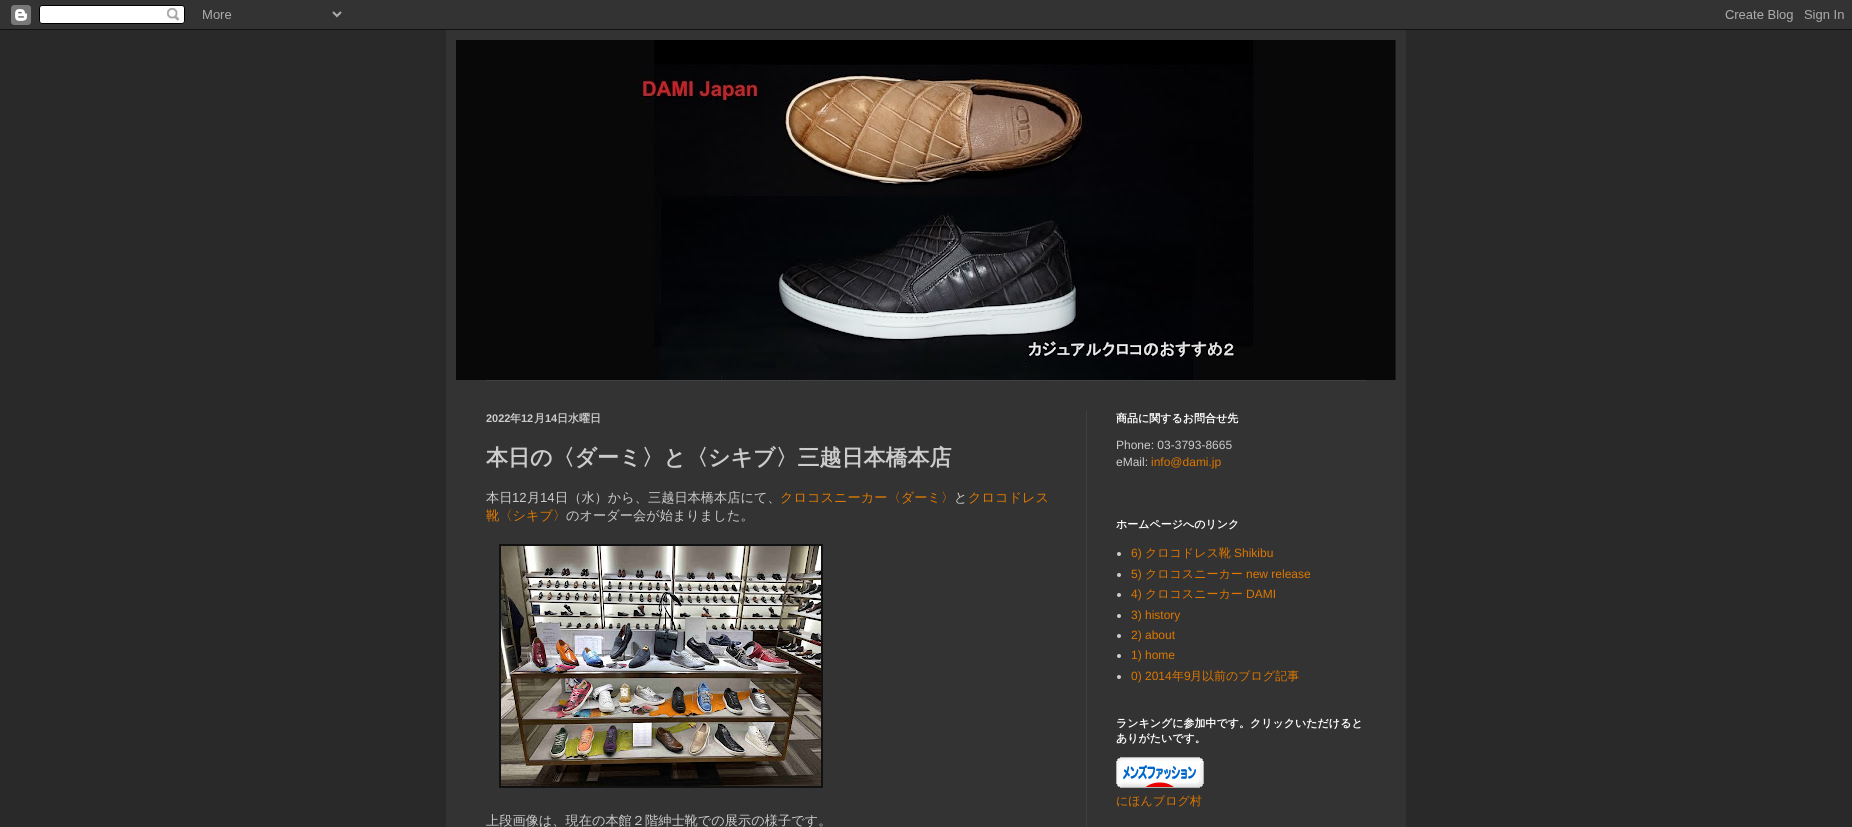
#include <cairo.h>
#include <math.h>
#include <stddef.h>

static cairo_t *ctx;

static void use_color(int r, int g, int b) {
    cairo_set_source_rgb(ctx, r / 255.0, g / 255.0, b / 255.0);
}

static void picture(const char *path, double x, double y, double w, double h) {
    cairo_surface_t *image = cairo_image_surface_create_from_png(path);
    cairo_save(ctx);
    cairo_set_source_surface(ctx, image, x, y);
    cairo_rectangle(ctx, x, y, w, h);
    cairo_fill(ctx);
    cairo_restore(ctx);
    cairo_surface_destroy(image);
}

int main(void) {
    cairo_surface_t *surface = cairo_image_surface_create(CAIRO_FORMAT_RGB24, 1852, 827);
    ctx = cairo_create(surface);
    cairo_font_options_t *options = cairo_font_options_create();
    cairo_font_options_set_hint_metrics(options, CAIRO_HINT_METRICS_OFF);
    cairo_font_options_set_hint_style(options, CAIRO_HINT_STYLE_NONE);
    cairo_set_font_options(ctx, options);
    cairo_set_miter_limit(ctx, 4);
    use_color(41, 41, 41);
    cairo_paint(ctx);
    picture("img1.png", 0, 0, 1852, 30);
    use_color(51, 51, 51);
    cairo_rectangle(ctx, 446, 30, 960, 797);
    cairo_fill(ctx);
    picture("img2.png", 456, 40, 940, 340);
    use_color(64, 64, 64);
    cairo_rectangle(ctx, 486, 380, 880, 1);
    cairo_fill(ctx);
    cairo_rectangle(ctx, 1086, 411, 1, 416);
    cairo_fill(ctx);
    cairo_select_font_face(ctx, "Liberation Sans", CAIRO_FONT_SLANT_NORMAL, CAIRO_FONT_WEIGHT_BOLD);
    cairo_set_font_size(ctx, 11);
    use_color(204, 204, 204);
    cairo_move_to(ctx, 486, 422);
    cairo_show_text(ctx, "2022");
    cairo_select_font_face(ctx, "WenQuanYi Zen Hei", CAIRO_FONT_SLANT_NORMAL, CAIRO_FONT_WEIGHT_BOLD);
    cairo_move_to(ctx, 510, 422);
    cairo_show_text(ctx, "年");
    cairo_select_font_face(ctx, "Liberation Sans", CAIRO_FONT_SLANT_NORMAL, CAIRO_FONT_WEIGHT_BOLD);
    cairo_move_to(ctx, 521, 422);
    cairo_show_text(ctx, "12");
    cairo_select_font_face(ctx, "WenQuanYi Zen Hei", CAIRO_FONT_SLANT_NORMAL, CAIRO_FONT_WEIGHT_BOLD);
    cairo_move_to(ctx, 534, 422);
    cairo_show_text(ctx, "月");
    cairo_select_font_face(ctx, "Liberation Sans", CAIRO_FONT_SLANT_NORMAL, CAIRO_FONT_WEIGHT_BOLD);
    cairo_move_to(ctx, 545, 422);
    cairo_show_text(ctx, "14");
    cairo_select_font_face(ctx, "WenQuanYi Zen Hei", CAIRO_FONT_SLANT_NORMAL, CAIRO_FONT_WEIGHT_BOLD);
    cairo_move_to(ctx, 557, 422);
    cairo_show_text(ctx, "日水曜日");
    cairo_set_font_size(ctx, 22);
    cairo_move_to(ctx, 486, 465);
    cairo_show_text(ctx, "本日の〈ダーミ〉と〈シキブ〉三越日本橋本店");
    cairo_select_font_face(ctx, "WenQuanYi Zen Hei Medium", CAIRO_FONT_SLANT_NORMAL, CAIRO_FONT_WEIGHT_NORMAL);
    cairo_set_font_size(ctx, 13.2);
    cairo_move_to(ctx, 486, 502);
    cairo_show_text(ctx, "本日");
    cairo_select_font_face(ctx, "Liberation Sans", CAIRO_FONT_SLANT_NORMAL, CAIRO_FONT_WEIGHT_NORMAL);
    cairo_move_to(ctx, 512, 502);
    cairo_show_text(ctx, "12");
    cairo_select_font_face(ctx, "WenQuanYi Zen Hei Medium", CAIRO_FONT_SLANT_NORMAL, CAIRO_FONT_WEIGHT_NORMAL);
    cairo_move_to(ctx, 527, 502);
    cairo_show_text(ctx, "月");
    cairo_select_font_face(ctx, "Liberation Sans", CAIRO_FONT_SLANT_NORMAL, CAIRO_FONT_WEIGHT_NORMAL);
    cairo_move_to(ctx, 540, 502);
    cairo_show_text(ctx, "14");
    cairo_select_font_face(ctx, "WenQuanYi Zen Hei Medium", CAIRO_FONT_SLANT_NORMAL, CAIRO_FONT_WEIGHT_NORMAL);
    cairo_move_to(ctx, 555, 502);
    cairo_show_text(ctx, "日（水）から、三越日本橋本店にて、");
    use_color(221, 119, 0);
    cairo_move_to(ctx, 780, 502);
    cairo_show_text(ctx, "クロコスニーカー〈ダーミ〉");
    use_color(204, 204, 204);
    cairo_move_to(ctx, 954, 502);
    cairo_show_text(ctx, "と");
    use_color(221, 119, 0);
    cairo_move_to(ctx, 968, 502);
    cairo_show_text(ctx, "クロコドレス");
    cairo_move_to(ctx, 486, 520);
    cairo_show_text(ctx, "靴〈シキブ〉");
    use_color(204, 204, 204);
    cairo_move_to(ctx, 566, 520);
    cairo_show_text(ctx, "のオーダー会が始まりました。");
    use_color(17, 17, 17);
    cairo_rectangle(ctx, 499, 544, 324, 244);
    cairo_fill(ctx);
    picture("img3.png", 501, 546, 320, 240);
    use_color(204, 204, 204);
    cairo_move_to(ctx, 486, 825);
    cairo_show_text(ctx, "上段画像は、現在の本館２階紳士靴での展示の様子です。");
    cairo_select_font_face(ctx, "WenQuanYi Zen Hei", CAIRO_FONT_SLANT_NORMAL, CAIRO_FONT_WEIGHT_BOLD);
    cairo_set_font_size(ctx, 11);
    use_color(255, 255, 255);
    cairo_move_to(ctx, 1116, 422);
    cairo_show_text(ctx, "商品に関するお問合せ先");
    cairo_select_font_face(ctx, "Liberation Sans", CAIRO_FONT_SLANT_NORMAL, CAIRO_FONT_WEIGHT_NORMAL);
    cairo_set_font_size(ctx, 12);
    use_color(204, 204, 204);
    cairo_move_to(ctx, 1116, 449);
    cairo_show_text(ctx, "Phone: 03-3793-8665");
    cairo_move_to(ctx, 1116, 466);
    cairo_show_text(ctx, "eMail:");
    use_color(221, 119, 0);
    cairo_move_to(ctx, 1151, 466);
    cairo_show_text(ctx, "info@dami.jp");
    cairo_select_font_face(ctx, "WenQuanYi Zen Hei", CAIRO_FONT_SLANT_NORMAL, CAIRO_FONT_WEIGHT_BOLD);
    cairo_set_font_size(ctx, 11);
    use_color(255, 255, 255);
    cairo_move_to(ctx, 1116, 528);
    cairo_show_text(ctx, "ホームページへのリンク");
    use_color(204, 204, 204);
    cairo_new_path(ctx);
    cairo_arc(ctx, 1119, 554, 2, 0, 2 * M_PI);
    cairo_fill(ctx);
    cairo_select_font_face(ctx, "Liberation Sans", CAIRO_FONT_SLANT_NORMAL, CAIRO_FONT_WEIGHT_NORMAL);
    cairo_set_font_size(ctx, 12);
    use_color(221, 119, 0);
    cairo_move_to(ctx, 1131, 557);
    cairo_show_text(ctx, "6)");
    cairo_select_font_face(ctx, "WenQuanYi Zen Hei Medium", CAIRO_FONT_SLANT_NORMAL, CAIRO_FONT_WEIGHT_NORMAL);
    cairo_move_to(ctx, 1145, 557);
    cairo_show_text(ctx, "クロコドレス靴");
    cairo_select_font_face(ctx, "Liberation Sans", CAIRO_FONT_SLANT_NORMAL, CAIRO_FONT_WEIGHT_NORMAL);
    cairo_move_to(ctx, 1234, 557);
    cairo_show_text(ctx, "Shikibu");
    use_color(204, 204, 204);
    cairo_new_path(ctx);
    cairo_arc(ctx, 1119, 575, 2, 0, 2 * M_PI);
    cairo_fill(ctx);
    use_color(221, 119, 0);
    cairo_move_to(ctx, 1131, 578);
    cairo_show_text(ctx, "5)");
    cairo_select_font_face(ctx, "WenQuanYi Zen Hei Medium", CAIRO_FONT_SLANT_NORMAL, CAIRO_FONT_WEIGHT_NORMAL);
    cairo_move_to(ctx, 1145, 578);
    cairo_show_text(ctx, "クロコスニーカー");
    cairo_select_font_face(ctx, "Liberation Sans", CAIRO_FONT_SLANT_NORMAL, CAIRO_FONT_WEIGHT_NORMAL);
    cairo_move_to(ctx, 1246, 578);
    cairo_show_text(ctx, "new release");
    use_color(204, 204, 204);
    cairo_new_path(ctx);
    cairo_arc(ctx, 1119, 595, 2, 0, 2 * M_PI);
    cairo_fill(ctx);
    use_color(221, 119, 0);
    cairo_move_to(ctx, 1131, 598);
    cairo_show_text(ctx, "4)");
    cairo_select_font_face(ctx, "WenQuanYi Zen Hei Medium", CAIRO_FONT_SLANT_NORMAL, CAIRO_FONT_WEIGHT_NORMAL);
    cairo_move_to(ctx, 1145, 598);
    cairo_show_text(ctx, "クロコスニーカー");
    cairo_select_font_face(ctx, "Liberation Sans", CAIRO_FONT_SLANT_NORMAL, CAIRO_FONT_WEIGHT_NORMAL);
    cairo_move_to(ctx, 1246, 598);
    cairo_show_text(ctx, "DAMI");
    use_color(204, 204, 204);
    cairo_new_path(ctx);
    cairo_arc(ctx, 1119, 616, 2, 0, 2 * M_PI);
    cairo_fill(ctx);
    use_color(221, 119, 0);
    cairo_move_to(ctx, 1131, 619);
    cairo_show_text(ctx, "3) history");
    use_color(204, 204, 204);
    cairo_new_path(ctx);
    cairo_arc(ctx, 1119, 636, 2, 0, 2 * M_PI);
    cairo_fill(ctx);
    use_color(221, 119, 0);
    cairo_move_to(ctx, 1131, 639);
    cairo_show_text(ctx, "2) about");
    use_color(204, 204, 204);
    cairo_new_path(ctx);
    cairo_arc(ctx, 1119, 656, 2, 0, 2 * M_PI);
    cairo_fill(ctx);
    use_color(221, 119, 0);
    cairo_move_to(ctx, 1131, 659);
    cairo_show_text(ctx, "1) home");
    use_color(204, 204, 204);
    cairo_new_path(ctx);
    cairo_arc(ctx, 1119, 677, 2, 0, 2 * M_PI);
    cairo_fill(ctx);
    use_color(221, 119, 0);
    cairo_move_to(ctx, 1131, 680);
    cairo_show_text(ctx, "0) 2014");
    cairo_select_font_face(ctx, "WenQuanYi Zen Hei Medium", CAIRO_FONT_SLANT_NORMAL, CAIRO_FONT_WEIGHT_NORMAL);
    cairo_move_to(ctx, 1172, 680);
    cairo_show_text(ctx, "年");
    cairo_select_font_face(ctx, "Liberation Sans", CAIRO_FONT_SLANT_NORMAL, CAIRO_FONT_WEIGHT_NORMAL);
    cairo_move_to(ctx, 1184, 680);
    cairo_show_text(ctx, "9");
    cairo_select_font_face(ctx, "WenQuanYi Zen Hei Medium", CAIRO_FONT_SLANT_NORMAL, CAIRO_FONT_WEIGHT_NORMAL);
    cairo_move_to(ctx, 1190, 680);
    cairo_show_text(ctx, "月以前のブログ記事");
    cairo_select_font_face(ctx, "WenQuanYi Zen Hei", CAIRO_FONT_SLANT_NORMAL, CAIRO_FONT_WEIGHT_BOLD);
    cairo_set_font_size(ctx, 11);
    use_color(255, 255, 255);
    cairo_move_to(ctx, 1116, 727);
    cairo_show_text(ctx, "ランキングに参加中です。クリックいただけると");
    cairo_move_to(ctx, 1116, 742);
    cairo_show_text(ctx, "ありがたいです。");
    picture("img4.png", 1116, 757, 88, 31);
    cairo_select_font_face(ctx, "WenQuanYi Zen Hei Medium", CAIRO_FONT_SLANT_NORMAL, CAIRO_FONT_WEIGHT_NORMAL);
    cairo_set_font_size(ctx, 12);
    use_color(221, 119, 0);
    cairo_move_to(ctx, 1116, 805);
    cairo_show_text(ctx, "にほんブログ村");
    cairo_surface_write_to_png(surface, "result.png");
    cairo_font_options_destroy(options);
    cairo_destroy(ctx);
    cairo_surface_destroy(surface);
    return 0;
}
